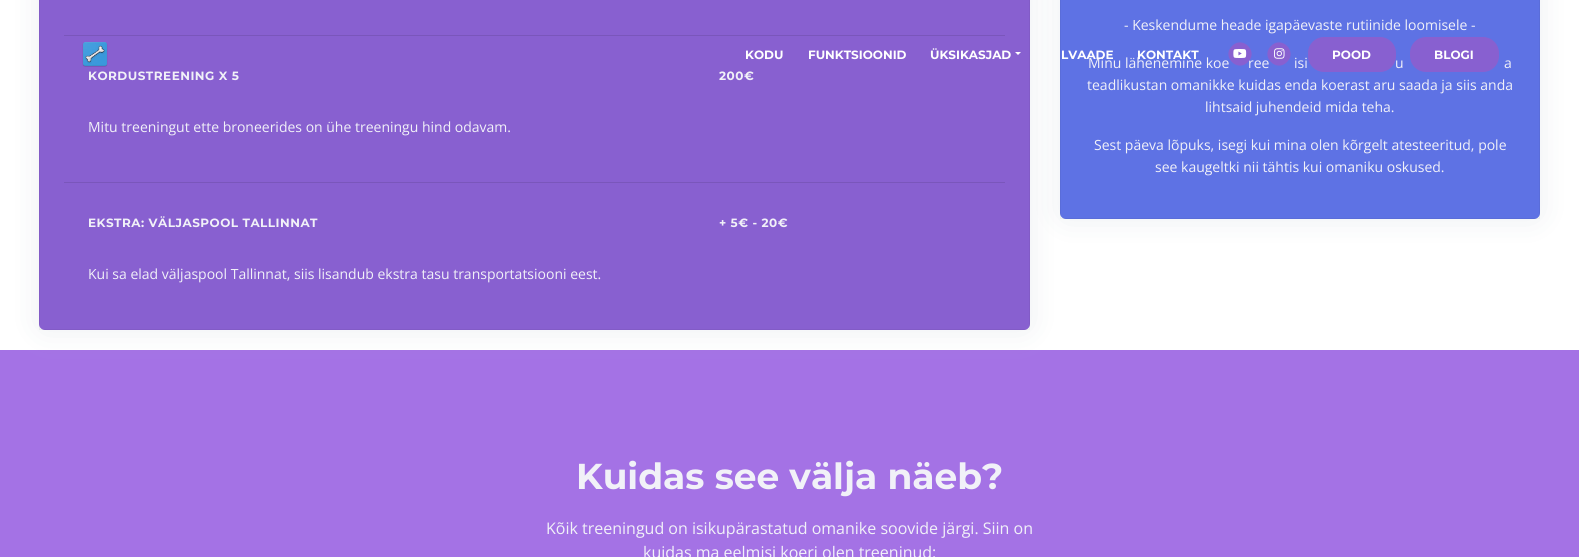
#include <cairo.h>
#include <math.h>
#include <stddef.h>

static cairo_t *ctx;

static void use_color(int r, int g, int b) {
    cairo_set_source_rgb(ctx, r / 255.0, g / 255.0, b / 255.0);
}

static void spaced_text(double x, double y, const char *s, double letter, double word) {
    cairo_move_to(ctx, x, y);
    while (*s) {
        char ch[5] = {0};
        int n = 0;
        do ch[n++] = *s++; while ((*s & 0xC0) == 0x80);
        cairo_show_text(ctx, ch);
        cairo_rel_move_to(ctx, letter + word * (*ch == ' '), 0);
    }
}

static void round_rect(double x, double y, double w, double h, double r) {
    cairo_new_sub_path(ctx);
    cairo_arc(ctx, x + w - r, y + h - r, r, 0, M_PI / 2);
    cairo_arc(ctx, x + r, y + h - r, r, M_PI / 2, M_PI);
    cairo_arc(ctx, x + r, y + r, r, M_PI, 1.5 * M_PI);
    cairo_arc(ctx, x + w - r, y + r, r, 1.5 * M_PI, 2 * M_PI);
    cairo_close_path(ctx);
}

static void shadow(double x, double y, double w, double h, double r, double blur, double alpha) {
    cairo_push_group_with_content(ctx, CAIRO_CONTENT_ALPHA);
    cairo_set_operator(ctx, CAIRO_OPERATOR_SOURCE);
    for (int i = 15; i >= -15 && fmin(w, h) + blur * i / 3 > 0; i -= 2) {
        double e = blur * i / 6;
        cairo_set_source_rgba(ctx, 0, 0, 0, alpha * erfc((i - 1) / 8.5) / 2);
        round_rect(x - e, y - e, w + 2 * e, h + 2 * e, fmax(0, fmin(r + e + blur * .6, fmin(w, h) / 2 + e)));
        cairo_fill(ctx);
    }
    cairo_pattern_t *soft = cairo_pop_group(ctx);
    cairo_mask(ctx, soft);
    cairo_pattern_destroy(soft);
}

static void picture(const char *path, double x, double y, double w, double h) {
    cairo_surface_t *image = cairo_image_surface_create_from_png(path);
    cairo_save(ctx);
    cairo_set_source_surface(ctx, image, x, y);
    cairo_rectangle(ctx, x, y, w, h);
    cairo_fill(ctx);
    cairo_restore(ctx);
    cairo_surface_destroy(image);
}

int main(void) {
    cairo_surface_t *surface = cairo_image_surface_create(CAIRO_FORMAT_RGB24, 1579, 557);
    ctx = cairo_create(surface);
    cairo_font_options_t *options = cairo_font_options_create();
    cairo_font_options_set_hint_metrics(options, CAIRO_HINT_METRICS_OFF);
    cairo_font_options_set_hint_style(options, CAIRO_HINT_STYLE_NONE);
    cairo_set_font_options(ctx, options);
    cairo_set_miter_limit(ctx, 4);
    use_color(255, 255, 255);
    cairo_paint(ctx);
    use_color(164, 114, 229);
    cairo_rectangle(ctx, 0, 350, 1579, 207);
    cairo_fill(ctx);
    use_color(136, 152, 170);
    shadow(39, -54, 991, 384, 6, 16, 0.15);
    use_color(136, 96, 208);
    round_rect(39, -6, 991, 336, 6);
    cairo_fill(ctx);
    cairo_rectangle(ctx, 39.5, -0.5, 990, 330);
    cairo_set_source_rgba(ctx, 0, 0, 0, 0.05);
    cairo_set_line_width(ctx, 1);
    cairo_stroke(ctx);
    use_color(122, 86, 187);
    cairo_rectangle(ctx, 64, 35, 941, 1);
    cairo_fill(ctx);
    cairo_select_font_face(ctx, "Montserrat", CAIRO_FONT_SLANT_NORMAL, CAIRO_FONT_WEIGHT_BOLD);
    cairo_set_font_size(ctx, 12);
    use_color(241, 241, 248);
    spaced_text(88, 80, "KORDUSTREENING X 5", 0.5, 0);
    cairo_select_font_face(ctx, "Open Sans", CAIRO_FONT_SLANT_NORMAL, CAIRO_FONT_WEIGHT_NORMAL);
    cairo_set_font_size(ctx, 14);
    cairo_move_to(ctx, 88, 132);
    cairo_show_text(ctx, "Mitu treeningut ette broneerides on ühe treeningu hind odavam.");
    cairo_select_font_face(ctx, "Montserrat", CAIRO_FONT_SLANT_NORMAL, CAIRO_FONT_WEIGHT_BOLD);
    cairo_set_font_size(ctx, 12);
    spaced_text(719, 80, "200€", 0.5, 0);
    use_color(122, 86, 187);
    cairo_rectangle(ctx, 64, 182, 941, 1);
    cairo_fill(ctx);
    use_color(241, 241, 248);
    spaced_text(88, 227, "EKSTRA: VÄLJASPOOL TALLINNAT", 0.5, 0);
    cairo_select_font_face(ctx, "Open Sans", CAIRO_FONT_SLANT_NORMAL, CAIRO_FONT_WEIGHT_NORMAL);
    cairo_set_font_size(ctx, 14);
    cairo_move_to(ctx, 88, 279);
    cairo_show_text(ctx, "Kui sa elad väljaspool Tallinnat, siis lisandub ekstra tasu transportatsiooni eest.");
    cairo_select_font_face(ctx, "Montserrat", CAIRO_FONT_SLANT_NORMAL, CAIRO_FONT_WEIGHT_BOLD);
    cairo_set_font_size(ctx, 12);
    spaced_text(719, 227, "+ 5€ - 20€", 0.5, 0);
    use_color(136, 152, 170);
    shadow(1060, -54, 480, 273, 6, 16, 0.15);
    use_color(94, 114, 228);
    round_rect(1060, -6, 480, 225, 6);
    cairo_fill(ctx);
    cairo_rectangle(ctx, 1060.5, -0.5, 479, 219);
    cairo_set_source_rgba(ctx, 0, 0, 0, 0.05);
    cairo_stroke(ctx);
    cairo_select_font_face(ctx, "Open Sans", CAIRO_FONT_SLANT_NORMAL, CAIRO_FONT_WEIGHT_NORMAL);
    cairo_set_font_size(ctx, 14);
    use_color(241, 241, 248);
    cairo_move_to(ctx, 1124, 30);
    cairo_show_text(ctx, "- Keskendume heade igapäevaste rutiinide loomisele -");
    cairo_move_to(ctx, 1088, 68);
    cairo_show_text(ctx, "Minu lähenemine koe");
    cairo_move_to(ctx, 1248, 68);
    cairo_show_text(ctx, "ree");
    cairo_move_to(ctx, 1294, 68);
    cairo_show_text(ctx, "isi");
    cairo_move_to(ctx, 1395, 68);
    cairo_show_text(ctx, "u");
    cairo_move_to(ctx, 1504, 68);
    cairo_show_text(ctx, "a");
    cairo_move_to(ctx, 1087, 90);
    cairo_show_text(ctx, "teadlikustan omanikke kuidas enda koerast aru saada ja siis anda");
    cairo_move_to(ctx, 1205, 112);
    cairo_show_text(ctx, "lihtsaid juhendeid mida teha.");
    cairo_move_to(ctx, 1094, 150);
    cairo_show_text(ctx, "Sest päeva lõpuks, isegi kui mina olen kõrgelt atesteeritud, pole");
    cairo_move_to(ctx, 1155, 172);
    cairo_show_text(ctx, "see kaugeltki nii tähtis kui omaniku oskused.");
    cairo_select_font_face(ctx, "Montserrat", CAIRO_FONT_SLANT_NORMAL, CAIRO_FONT_WEIGHT_BOLD);
    cairo_set_font_size(ctx, 36);
    cairo_move_to(ctx, 576, 489);
    cairo_show_text(ctx, "Kuidas see välja näeb?");
    cairo_select_font_face(ctx, "Open Sans", CAIRO_FONT_SLANT_NORMAL, CAIRO_FONT_WEIGHT_NORMAL);
    cairo_set_font_size(ctx, 16);
    cairo_move_to(ctx, 546, 534);
    cairo_show_text(ctx, "Kõik treeningud on isikupärastatud omanike soovide järgi. Siin on");
    cairo_move_to(ctx, 643, 558);
    cairo_show_text(ctx, "kuidas ma eelmisi koeri olen treeninud:");
    picture("img1.png", 82, 42, 26, 25);
    cairo_select_font_face(ctx, "Montserrat", CAIRO_FONT_SLANT_NORMAL, CAIRO_FONT_WEIGHT_BOLD);
    cairo_set_font_size(ctx, 12);
    use_color(255, 255, 255);
    cairo_move_to(ctx, 745, 59);
    cairo_show_text(ctx, "KODU");
    cairo_move_to(ctx, 808, 59);
    cairo_show_text(ctx, "FUNKTSIOONID");
    cairo_move_to(ctx, 930, 59);
    cairo_show_text(ctx, "ÜKSIKASJAD");
    cairo_new_path(ctx);
    cairo_move_to(ctx, 1015, 52);
    cairo_line_to(ctx, 1021, 52);
    cairo_line_to(ctx, 1018, 55);
    cairo_close_path(ctx);
    cairo_fill(ctx);
    cairo_move_to(ctx, 1061, 59);
    cairo_show_text(ctx, "LVAADE");
    cairo_move_to(ctx, 1137, 59);
    cairo_show_text(ctx, "KONTAKT");
    use_color(136, 96, 208);
    cairo_new_path(ctx);
    cairo_move_to(ctx, 1232, 46);
    cairo_curve_to(ctx, 1242.5, 35, 1259, 51.5, 1248, 62);
    cairo_curve_to(ctx, 1237.5, 73, 1221, 56.5, 1232, 46);
    cairo_close_path(ctx);
    cairo_fill(ctx);
    picture("img2.png", 1233, 49, 14, 9);
    cairo_new_path(ctx);
    cairo_move_to(ctx, 1271, 46);
    cairo_curve_to(ctx, 1281.5, 35, 1298, 51.5, 1287, 62);
    cairo_curve_to(ctx, 1276.5, 73, 1260, 56.5, 1271, 46);
    cairo_close_path(ctx);
    cairo_fill(ctx);
    picture("img3.png", 1274, 48, 11, 11);
    round_rect(1309, 38, 86, 33, 15);
    cairo_fill_preserve(ctx);
    cairo_set_line_width(ctx, 2);
    cairo_stroke(ctx);
    use_color(255, 255, 255);
    cairo_move_to(ctx, 1332, 59);
    cairo_show_text(ctx, "POOD");
    use_color(136, 96, 208);
    round_rect(1411, 38, 87, 33, 15);
    cairo_fill_preserve(ctx);
    cairo_stroke(ctx);
    use_color(255, 255, 255);
    cairo_move_to(ctx, 1434, 59);
    cairo_show_text(ctx, "BLOGI");
    cairo_surface_write_to_png(surface, "result.png");
    cairo_font_options_destroy(options);
    cairo_destroy(ctx);
    cairo_surface_destroy(surface);
    return 0;
}
